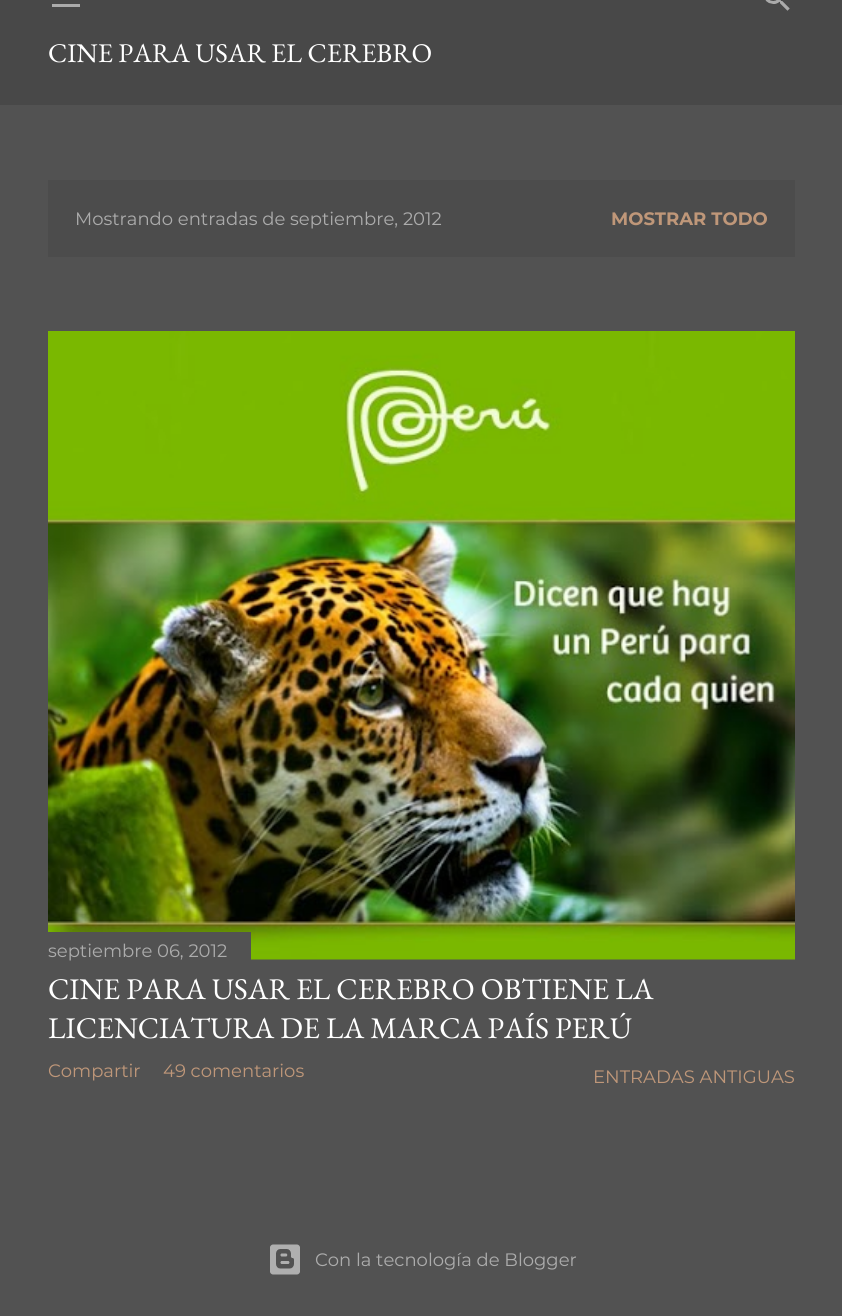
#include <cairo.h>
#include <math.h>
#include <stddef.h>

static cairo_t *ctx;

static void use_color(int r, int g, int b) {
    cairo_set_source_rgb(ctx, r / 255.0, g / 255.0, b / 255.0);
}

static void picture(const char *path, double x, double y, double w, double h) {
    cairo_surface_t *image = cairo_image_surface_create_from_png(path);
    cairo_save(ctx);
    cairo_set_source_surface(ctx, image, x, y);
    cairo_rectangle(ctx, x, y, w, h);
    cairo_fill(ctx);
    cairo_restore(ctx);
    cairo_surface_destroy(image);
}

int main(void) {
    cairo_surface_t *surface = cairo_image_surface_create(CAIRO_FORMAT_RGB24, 842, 1316);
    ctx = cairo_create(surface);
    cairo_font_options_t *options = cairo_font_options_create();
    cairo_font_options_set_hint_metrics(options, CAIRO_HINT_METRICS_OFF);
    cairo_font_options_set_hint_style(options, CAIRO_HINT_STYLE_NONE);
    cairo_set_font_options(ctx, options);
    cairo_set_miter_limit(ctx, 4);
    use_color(82, 82, 82);
    cairo_paint(ctx);
    use_color(72, 72, 72);
    cairo_rectangle(ctx, 0, 0, 842, 105);
    cairo_fill(ctx);
    use_color(171, 171, 171);
    cairo_rectangle(ctx, 52, 4, 28, 3);
    cairo_fill(ctx);
    picture("img1.png", 765, 0, 25, 11);
    cairo_select_font_face(ctx, "EB Garamond", CAIRO_FONT_SLANT_NORMAL, CAIRO_FONT_WEIGHT_NORMAL);
    cairo_set_font_size(ctx, 27);
    use_color(255, 255, 255);
    cairo_move_to(ctx, 48, 62);
    cairo_show_text(ctx, "CINE PARA USAR EL CEREBRO");
    use_color(76, 76, 76);
    cairo_rectangle(ctx, 48, 180, 747, 77);
    cairo_fill(ctx);
    cairo_select_font_face(ctx, "Montserrat", CAIRO_FONT_SLANT_NORMAL, CAIRO_FONT_WEIGHT_NORMAL);
    cairo_set_font_size(ctx, 18);
    use_color(172, 172, 172);
    cairo_move_to(ctx, 75, 225);
    cairo_show_text(ctx, "Mostrando entradas de septiembre, 2012");
    cairo_select_font_face(ctx, "Montserrat", CAIRO_FONT_SLANT_NORMAL, CAIRO_FONT_WEIGHT_BOLD);
    use_color(191, 151, 121);
    cairo_move_to(ctx, 611, 225);
    cairo_show_text(ctx, "MOSTRAR TODO");
    picture("img2.png", 48, 331, 747, 629);
    use_color(82, 82, 82);
    cairo_rectangle(ctx, 48, 932, 203, 28);
    cairo_fill(ctx);
    cairo_select_font_face(ctx, "Montserrat", CAIRO_FONT_SLANT_NORMAL, CAIRO_FONT_WEIGHT_NORMAL);
    use_color(172, 172, 172);
    cairo_move_to(ctx, 48, 957);
    cairo_show_text(ctx, "septiembre 06, 2012");
    cairo_select_font_face(ctx, "EB Garamond", CAIRO_FONT_SLANT_NORMAL, CAIRO_FONT_WEIGHT_NORMAL);
    cairo_set_font_size(ctx, 30);
    use_color(255, 255, 255);
    cairo_move_to(ctx, 48, 999);
    cairo_show_text(ctx, "CINE PARA USAR EL CEREBRO OBTIENE LA");
    cairo_move_to(ctx, 48, 1038);
    cairo_show_text(ctx, "LICENCIATURA DE LA MARCA PAÍS PERÚ");
    cairo_select_font_face(ctx, "Montserrat", CAIRO_FONT_SLANT_NORMAL, CAIRO_FONT_WEIGHT_NORMAL);
    cairo_set_font_size(ctx, 18);
    use_color(191, 151, 121);
    cairo_move_to(ctx, 48, 1077);
    cairo_show_text(ctx, "Compartir");
    cairo_move_to(ctx, 163, 1077);
    cairo_show_text(ctx, "49 comentarios");
    cairo_move_to(ctx, 593, 1083);
    cairo_show_text(ctx, "ENTRADAS ANTIGUAS");
    picture("img3.png", 270, 1244, 30, 31);
    use_color(172, 172, 172);
    cairo_move_to(ctx, 315, 1266);
    cairo_show_text(ctx, "Con la tecnología de Blogger");
    cairo_surface_write_to_png(surface, "result.png");
    cairo_font_options_destroy(options);
    cairo_destroy(ctx);
    cairo_surface_destroy(surface);
    return 0;
}
